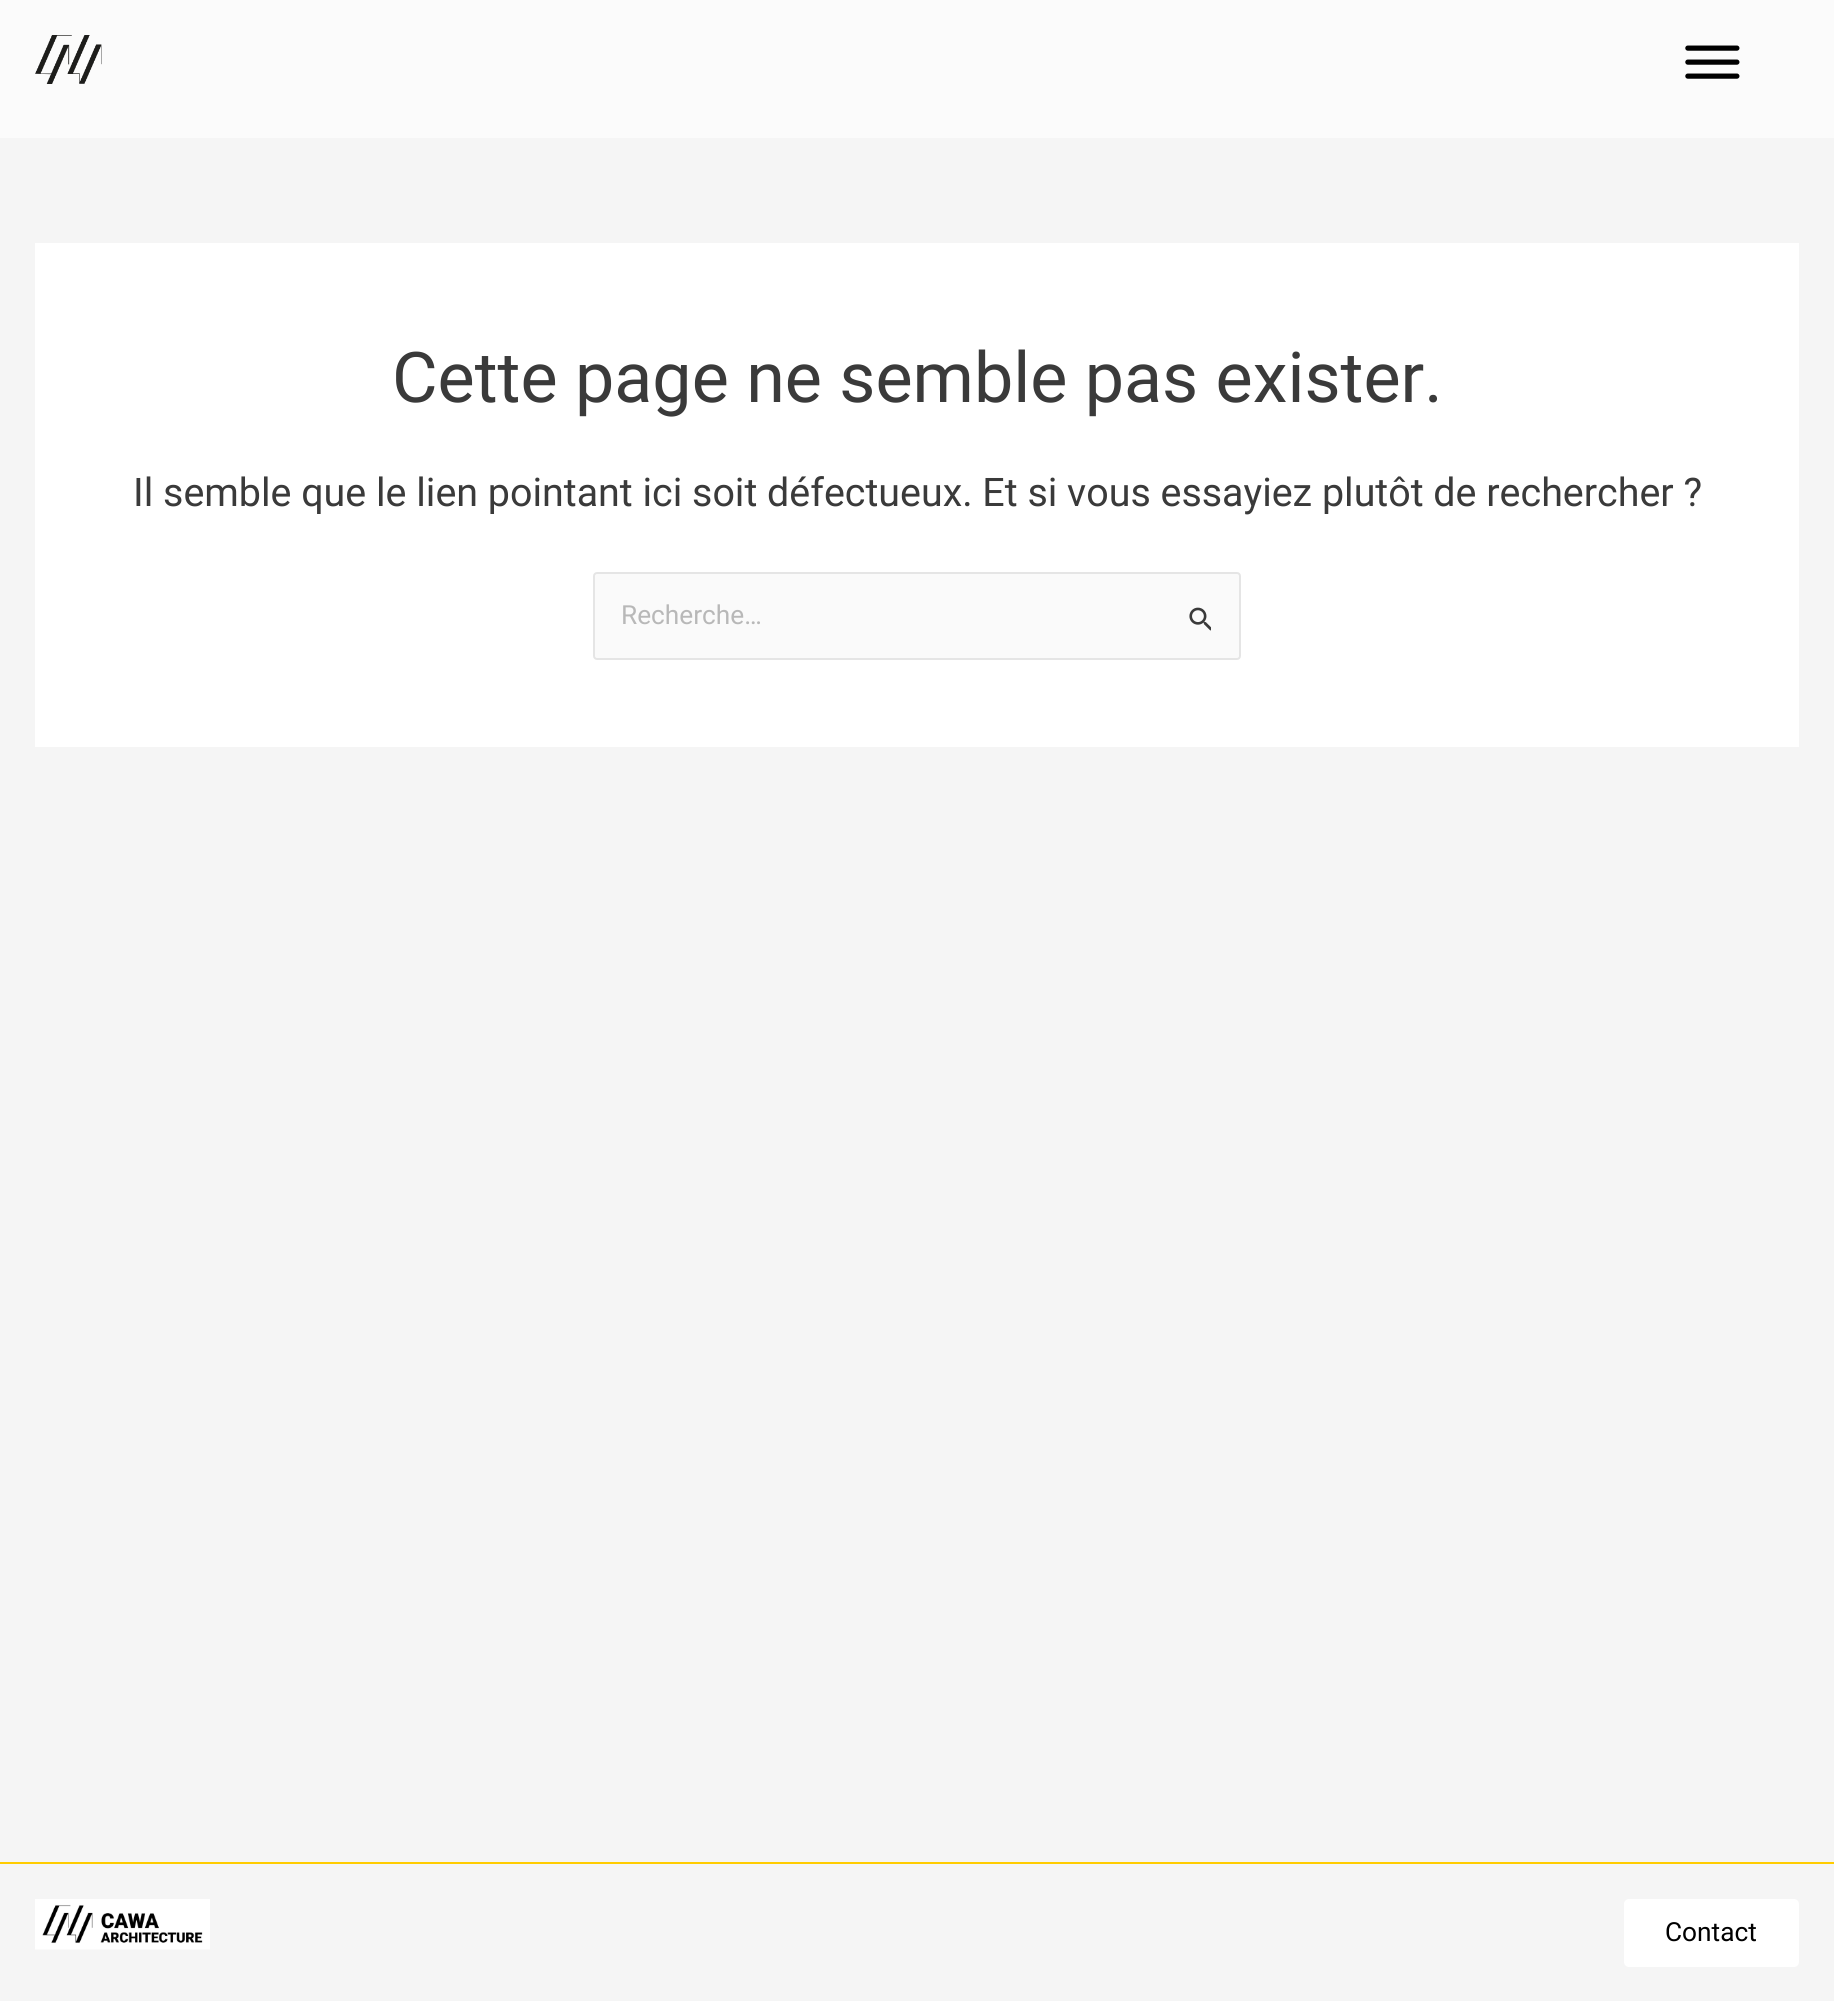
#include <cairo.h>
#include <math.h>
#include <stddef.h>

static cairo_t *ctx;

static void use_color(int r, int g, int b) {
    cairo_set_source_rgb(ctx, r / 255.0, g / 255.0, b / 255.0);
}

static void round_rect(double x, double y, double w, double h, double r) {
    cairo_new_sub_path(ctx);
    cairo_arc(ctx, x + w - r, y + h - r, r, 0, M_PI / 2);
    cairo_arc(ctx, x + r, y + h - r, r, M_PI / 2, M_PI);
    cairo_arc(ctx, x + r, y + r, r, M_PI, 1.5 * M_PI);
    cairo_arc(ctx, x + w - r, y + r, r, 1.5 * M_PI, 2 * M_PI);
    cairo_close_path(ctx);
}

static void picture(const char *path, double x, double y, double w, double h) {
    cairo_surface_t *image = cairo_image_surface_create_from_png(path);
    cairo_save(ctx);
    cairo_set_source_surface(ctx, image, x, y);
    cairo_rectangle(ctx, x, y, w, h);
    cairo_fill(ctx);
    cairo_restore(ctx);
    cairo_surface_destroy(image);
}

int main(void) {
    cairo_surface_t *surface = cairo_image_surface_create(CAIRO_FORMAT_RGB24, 1834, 2001);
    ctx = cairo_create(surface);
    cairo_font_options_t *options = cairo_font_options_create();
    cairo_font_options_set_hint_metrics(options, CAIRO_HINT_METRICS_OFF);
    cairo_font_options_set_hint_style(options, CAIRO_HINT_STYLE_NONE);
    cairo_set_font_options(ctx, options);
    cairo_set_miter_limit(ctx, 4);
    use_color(245, 245, 245);
    cairo_paint(ctx);
    use_color(251, 251, 251);
    cairo_rectangle(ctx, 0, 0, 1834, 138);
    cairo_fill(ctx);
    picture("img1.png", 35, 35, 67, 49);
    picture("img2.png", 1685, 45, 55, 34);
    use_color(255, 255, 255);
    cairo_rectangle(ctx, 35, 243, 1764, 504);
    cairo_fill(ctx);
    cairo_select_font_face(ctx, "Roboto", CAIRO_FONT_SLANT_NORMAL, CAIRO_FONT_WEIGHT_NORMAL);
    cairo_set_font_size(ctx, 70);
    use_color(58, 58, 58);
    cairo_move_to(ctx, 392, 402);
    cairo_show_text(ctx, "Cette page ne semble pas exister.");
    cairo_set_font_size(ctx, 39.4);
    cairo_move_to(ctx, 133, 506);
    cairo_show_text(ctx, "Il semble que le lien pointant ici soit défectueux. Et si vous essayiez plutôt de rechercher ?");
    use_color(250, 250, 250);
    round_rect(594, 573, 646, 86, 3);
    cairo_fill_preserve(ctx);
    use_color(229, 229, 229);
    cairo_stroke(ctx);
    cairo_set_font_size(ctx, 26.25);
    use_color(184, 184, 184);
    cairo_move_to(ctx, 621, 624);
    cairo_show_text(ctx, "Recherche…");
    picture("img3.png", 1189, 607, 22, 24);
    use_color(255, 204, 0);
    cairo_rectangle(ctx, 0, 1862, 1834, 2);
    cairo_fill(ctx);
    picture("img4.png", 35, 1899, 175, 51);
    use_color(255, 255, 255);
    round_rect(1624, 1899, 175, 68, 5);
    cairo_fill(ctx);
    use_color(0, 0, 0);
    cairo_move_to(ctx, 1665, 1941);
    cairo_show_text(ctx, "Contact");
    cairo_surface_write_to_png(surface, "result.png");
    cairo_font_options_destroy(options);
    cairo_destroy(ctx);
    cairo_surface_destroy(surface);
    return 0;
}
